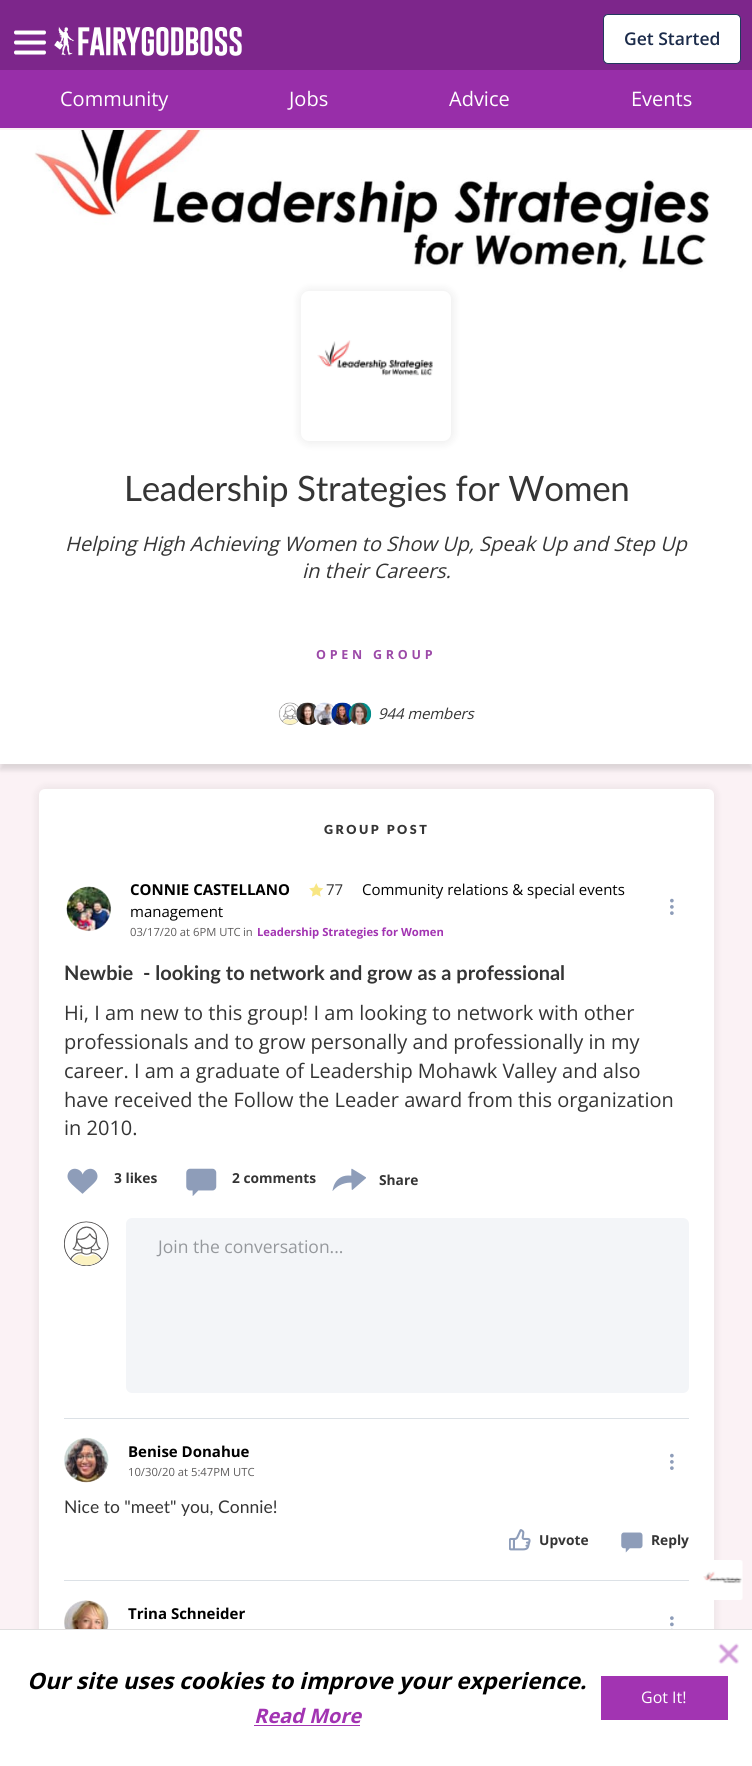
#include <cairo.h>
#include <math.h>
#include <stddef.h>

static cairo_t *ctx;

static void use_color(int r, int g, int b) {
    cairo_set_source_rgb(ctx, r / 255.0, g / 255.0, b / 255.0);
}

static void spaced_text(double x, double y, const char *s, double letter, double word) {
    cairo_move_to(ctx, x, y);
    while (*s) {
        char ch[5] = {0};
        int n = 0;
        do ch[n++] = *s++; while ((*s & 0xC0) == 0x80);
        cairo_show_text(ctx, ch);
        cairo_rel_move_to(ctx, letter + word * (*ch == ' '), 0);
    }
}

static void round_rect(double x, double y, double w, double h, double r) {
    cairo_new_sub_path(ctx);
    cairo_arc(ctx, x + w - r, y + h - r, r, 0, M_PI / 2);
    cairo_arc(ctx, x + r, y + h - r, r, M_PI / 2, M_PI);
    cairo_arc(ctx, x + r, y + r, r, M_PI, 1.5 * M_PI);
    cairo_arc(ctx, x + w - r, y + r, r, 1.5 * M_PI, 2 * M_PI);
    cairo_close_path(ctx);
}

static void shadow(double x, double y, double w, double h, double r, double blur, double alpha) {
    cairo_push_group_with_content(ctx, CAIRO_CONTENT_ALPHA);
    cairo_set_operator(ctx, CAIRO_OPERATOR_SOURCE);
    for (int i = 15; i >= -15 && fmin(w, h) + blur * i / 3 > 0; i -= 2) {
        double e = blur * i / 6;
        cairo_set_source_rgba(ctx, 0, 0, 0, alpha * erfc((i - 1) / 8.5) / 2);
        round_rect(x - e, y - e, w + 2 * e, h + 2 * e, fmax(0, fmin(r + e + blur * .6, fmin(w, h) / 2 + e)));
        cairo_fill(ctx);
    }
    cairo_pattern_t *soft = cairo_pop_group(ctx);
    cairo_mask(ctx, soft);
    cairo_pattern_destroy(soft);
}

static void picture(const char *path, double x, double y, double w, double h) {
    cairo_surface_t *image = cairo_image_surface_create_from_png(path);
    cairo_save(ctx);
    cairo_set_source_surface(ctx, image, x, y);
    cairo_rectangle(ctx, x, y, w, h);
    cairo_fill(ctx);
    cairo_restore(ctx);
    cairo_surface_destroy(image);
}

int main(void) {
    cairo_surface_t *surface = cairo_image_surface_create(CAIRO_FORMAT_RGB24, 752, 1766);
    ctx = cairo_create(surface);
    cairo_font_options_t *options = cairo_font_options_create();
    cairo_font_options_set_hint_metrics(options, CAIRO_HINT_METRICS_OFF);
    cairo_font_options_set_hint_style(options, CAIRO_HINT_STYLE_NONE);
    cairo_set_font_options(ctx, options);
    cairo_set_miter_limit(ctx, 4);
    use_color(251, 242, 245);
    cairo_paint(ctx);
    use_color(125, 38, 139);
    cairo_rectangle(ctx, 0, 0, 752, 70);
    cairo_fill(ctx);
    picture("img1.png", 14, 30, 32, 25);
    picture("img2.png", 54, 26, 188, 30);
    use_color(255, 255, 255);
    round_rect(603.5, 14.5, 137, 49, 4.5);
    cairo_fill_preserve(ctx);
    use_color(34, 56, 94);
    cairo_set_line_width(ctx, 1);
    cairo_stroke(ctx);
    cairo_select_font_face(ctx, "Open Sans SemiBold", CAIRO_FONT_SLANT_NORMAL, CAIRO_FONT_WEIGHT_NORMAL);
    cairo_set_font_size(ctx, 17.5);
    use_color(27, 43, 74);
    cairo_move_to(ctx, 624, 45);
    cairo_show_text(ctx, "Get Started");
    use_color(0, 0, 0);
    shadow(0, 136, 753, 634, 0, 2.5, 0.12);
    use_color(152, 46, 169);
    cairo_rectangle(ctx, 0, 70, 752, 58);
    cairo_fill(ctx);
    cairo_select_font_face(ctx, "Open Sans", CAIRO_FONT_SLANT_NORMAL, CAIRO_FONT_WEIGHT_NORMAL);
    cairo_set_font_size(ctx, 20);
    use_color(255, 255, 255);
    cairo_move_to(ctx, 60, 106);
    cairo_show_text(ctx, "Community");
    cairo_move_to(ctx, 289, 106);
    cairo_show_text(ctx, "Jobs");
    cairo_move_to(ctx, 449, 106);
    cairo_show_text(ctx, "Advice");
    cairo_move_to(ctx, 631, 106);
    cairo_show_text(ctx, "Events");
    cairo_rectangle(ctx, 0, 130, 752, 634);
    cairo_fill(ctx);
    picture("img3.png", 34, 130, 676, 142);
    use_color(0, 0, 0);
    shadow(300, 290, 153, 153, 9, 5, 0.08);
    use_color(255, 255, 255);
    round_rect(301, 291, 150, 150, 8);
    cairo_fill(ctx);
    picture("img4.png", 317, 340, 116, 36);
    cairo_select_font_face(ctx, "Lato", CAIRO_FONT_SLANT_NORMAL, CAIRO_FONT_WEIGHT_NORMAL);
    cairo_set_font_size(ctx, 35);
    use_color(53, 53, 53);
    spaced_text(124, 501, "Leadership Strategies for Women", -0.3, 0);
    cairo_select_font_face(ctx, "Open Sans", CAIRO_FONT_SLANT_ITALIC, CAIRO_FONT_WEIGHT_NORMAL);
    cairo_set_font_size(ctx, 20);
    cairo_move_to(ctx, 65, 551);
    cairo_show_text(ctx, "Helping High Achieving Women to Show Up, Speak Up and Step Up");
    cairo_move_to(ctx, 302, 578);
    cairo_show_text(ctx, "in their Careers.");
    cairo_select_font_face(ctx, "Open Sans", CAIRO_FONT_SLANT_NORMAL, CAIRO_FONT_WEIGHT_BOLD);
    cairo_set_font_size(ctx, 12.5);
    use_color(156, 74, 168);
    spaced_text(316, 659, "OPEN GROUP", 3.75, 0);
    picture("img5.png", 278, 702, 21, 23);
    use_color(255, 255, 255);
    round_rect(296, 703, 23, 22, 11);
    cairo_fill(ctx);
    picture("img6.png", 296, 702, 21, 23);
    picture("img7.png", 313, 702, 21, 23);
    round_rect(331, 703, 23, 22, 11);
    cairo_fill(ctx);
    picture("img8.png", 331, 702, 21, 23);
    picture("img9.png", 348, 702, 24, 23);
    cairo_select_font_face(ctx, "Open Sans", CAIRO_FONT_SLANT_ITALIC, CAIRO_FONT_WEIGHT_NORMAL);
    cairo_set_font_size(ctx, 15);
    use_color(53, 53, 53);
    spaced_text(378, 719, "944 members", -0.1, 0);
    use_color(0, 0, 0);
    shadow(38, 788, 677, 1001, 8, 5, 0.08);
    use_color(255, 255, 255);
    round_rect(39, 789, 675, 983, 6);
    cairo_fill(ctx);
    cairo_select_font_face(ctx, "Lato Black", CAIRO_FONT_SLANT_NORMAL, CAIRO_FONT_WEIGHT_NORMAL);
    cairo_set_font_size(ctx, 12.5);
    use_color(53, 53, 53);
    spaced_text(324, 834, "GROUP POST", 2.5, 0);
    picture("img10.png", 66, 886, 46, 46);
    cairo_select_font_face(ctx, "Open Sans", CAIRO_FONT_SLANT_NORMAL, CAIRO_FONT_WEIGHT_BOLD);
    cairo_set_font_size(ctx, 15);
    use_color(0, 0, 0);
    cairo_move_to(ctx, 130, 895);
    cairo_show_text(ctx, "CONNIE CASTELLANO");
    picture("img11.png", 309, 883, 15, 14);
    cairo_select_font_face(ctx, "Open Sans", CAIRO_FONT_SLANT_NORMAL, CAIRO_FONT_WEIGHT_NORMAL);
    use_color(53, 53, 53);
    cairo_move_to(ctx, 326, 895);
    cairo_show_text(ctx, "77");
    use_color(0, 0, 0);
    cairo_move_to(ctx, 362, 895);
    cairo_show_text(ctx, "Community relations & special events");
    cairo_move_to(ctx, 130, 917);
    cairo_show_text(ctx, "management");
    cairo_set_font_size(ctx, 11.25);
    use_color(95, 93, 93);
    cairo_move_to(ctx, 130, 936);
    cairo_show_text(ctx, "03/17/20 at 6PM UTC");
    cairo_move_to(ctx, 243, 936);
    cairo_show_text(ctx, "in");
    cairo_select_font_face(ctx, "Open Sans", CAIRO_FONT_SLANT_NORMAL, CAIRO_FONT_WEIGHT_BOLD);
    use_color(162, 52, 178);
    cairo_move_to(ctx, 257, 936);
    cairo_show_text(ctx, "Leadership Strategies for Women");
    picture("img12.png", 670, 898, 4, 17);
    cairo_select_font_face(ctx, "Lato", CAIRO_FONT_SLANT_NORMAL, CAIRO_FONT_WEIGHT_BOLD);
    cairo_set_font_size(ctx, 20);
    use_color(53, 53, 53);
    cairo_move_to(ctx, 64, 980);
    cairo_show_text(ctx, "Newbie  - looking to network and grow as a professional");
    cairo_select_font_face(ctx, "Open Sans", CAIRO_FONT_SLANT_NORMAL, CAIRO_FONT_WEIGHT_NORMAL);
    cairo_move_to(ctx, 64, 1020);
    cairo_show_text(ctx, "Hi, I am new to this group! I am looking to network with other");
    cairo_move_to(ctx, 64, 1049);
    cairo_show_text(ctx, "professionals and to grow personally and professionally in my");
    cairo_move_to(ctx, 64, 1078);
    cairo_show_text(ctx, "career. I am a graduate of Leadership Mohawk Valley and also");
    cairo_move_to(ctx, 64, 1107);
    cairo_show_text(ctx, "have received the Follow the Leader award from this organization");
    cairo_move_to(ctx, 64, 1135);
    cairo_show_text(ctx, "in 2010.");
    picture("img13.png", 67, 1168, 31, 26);
    cairo_select_font_face(ctx, "Open Sans", CAIRO_FONT_SLANT_NORMAL, CAIRO_FONT_WEIGHT_BOLD);
    cairo_set_font_size(ctx, 13.75);
    cairo_move_to(ctx, 114, 1183);
    cairo_show_text(ctx, "3 likes");
    picture("img14.png", 186, 1168, 31, 28);
    cairo_move_to(ctx, 232, 1183);
    cairo_show_text(ctx, "2 comments");
    picture("img15.png", 332, 1168, 34, 23);
    cairo_move_to(ctx, 379, 1185);
    cairo_show_text(ctx, "Share");
    picture("img16.png", 64, 1221, 45, 45);
    use_color(243, 245, 248);
    round_rect(126, 1218, 563, 175, 6);
    cairo_fill(ctx);
    cairo_select_font_face(ctx, "Open Sans", CAIRO_FONT_SLANT_NORMAL, CAIRO_FONT_WEIGHT_NORMAL);
    cairo_set_font_size(ctx, 17.5);
    use_color(149, 152, 156);
    cairo_move_to(ctx, 158, 1253);
    cairo_show_text(ctx, "Join the conversation...");
    use_color(220, 225, 230);
    cairo_rectangle(ctx, 64, 1418, 625, 1);
    cairo_fill(ctx);
    picture("img17.png", 64, 1437, 45, 46);
    cairo_select_font_face(ctx, "Open Sans", CAIRO_FONT_SLANT_NORMAL, CAIRO_FONT_WEIGHT_BOLD);
    cairo_set_font_size(ctx, 15);
    use_color(0, 0, 0);
    cairo_move_to(ctx, 128, 1457);
    cairo_show_text(ctx, "Benise Donahue");
    cairo_select_font_face(ctx, "Open Sans", CAIRO_FONT_SLANT_NORMAL, CAIRO_FONT_WEIGHT_NORMAL);
    cairo_set_font_size(ctx, 11.25);
    use_color(95, 93, 93);
    cairo_move_to(ctx, 128, 1476);
    cairo_show_text(ctx, "10/30/20 at 5:47PM UTC");
    picture("img12.png", 670, 1453, 4, 17);
    cairo_select_font_face(ctx, "Lato", CAIRO_FONT_SLANT_NORMAL, CAIRO_FONT_WEIGHT_NORMAL);
    cairo_set_font_size(ctx, 17.5);
    use_color(53, 53, 53);
    cairo_move_to(ctx, 64, 1513);
    cairo_show_text(ctx, "Nice to \"meet\" you, Connie!");
    picture("img18.png", 509, 1529, 22, 22);
    cairo_select_font_face(ctx, "Open Sans", CAIRO_FONT_SLANT_NORMAL, CAIRO_FONT_WEIGHT_BOLD);
    cairo_set_font_size(ctx, 13.75);
    cairo_move_to(ctx, 539, 1545);
    cairo_show_text(ctx, "Upvote");
    picture("img19.png", 621, 1532, 22, 21);
    cairo_move_to(ctx, 651, 1545);
    cairo_show_text(ctx, "Reply");
    use_color(220, 225, 230);
    cairo_rectangle(ctx, 64, 1580, 625, 1);
    cairo_fill(ctx);
    picture("img20.png", 64, 1600, 45, 29);
    cairo_set_font_size(ctx, 15);
    use_color(0, 0, 0);
    cairo_move_to(ctx, 128, 1619);
    cairo_show_text(ctx, "Trina Schneider");
    picture("img21.png", 670, 1616, 4, 13);
    picture("img22.png", 703, 1560, 40, 40);
    use_color(255, 255, 255);
    cairo_rectangle(ctx, 0, 1630, 752, 136);
    cairo_fill(ctx);
    use_color(224, 224, 224);
    cairo_rectangle(ctx, 0, 1629, 752, 1);
    cairo_fill(ctx);
    picture("img23.png", 718, 1643, 21, 21);
    cairo_select_font_face(ctx, "Open Sans", CAIRO_FONT_SLANT_ITALIC, CAIRO_FONT_WEIGHT_BOLD);
    cairo_set_font_size(ctx, 22.5);
    use_color(0, 0, 0);
    cairo_move_to(ctx, 27, 1689);
    cairo_show_text(ctx, "Our site uses cookies to improve your experience.");
    cairo_set_font_size(ctx, 20);
    use_color(162, 52, 178);
    cairo_move_to(ctx, 254, 1723);
    cairo_show_text(ctx, "Read More");
    cairo_rectangle(ctx, 254, 1725, 106, 1);
    cairo_fill(ctx);
    cairo_rectangle(ctx, 601, 1676, 127, 44);
    cairo_fill(ctx);
    cairo_select_font_face(ctx, "Open Sans", CAIRO_FONT_SLANT_NORMAL, CAIRO_FONT_WEIGHT_NORMAL);
    cairo_set_font_size(ctx, 16);
    use_color(255, 255, 255);
    cairo_move_to(ctx, 641, 1703);
    cairo_show_text(ctx, "Got It!");
    cairo_surface_write_to_png(surface, "result.png");
    cairo_font_options_destroy(options);
    cairo_destroy(ctx);
    cairo_surface_destroy(surface);
    return 0;
}
